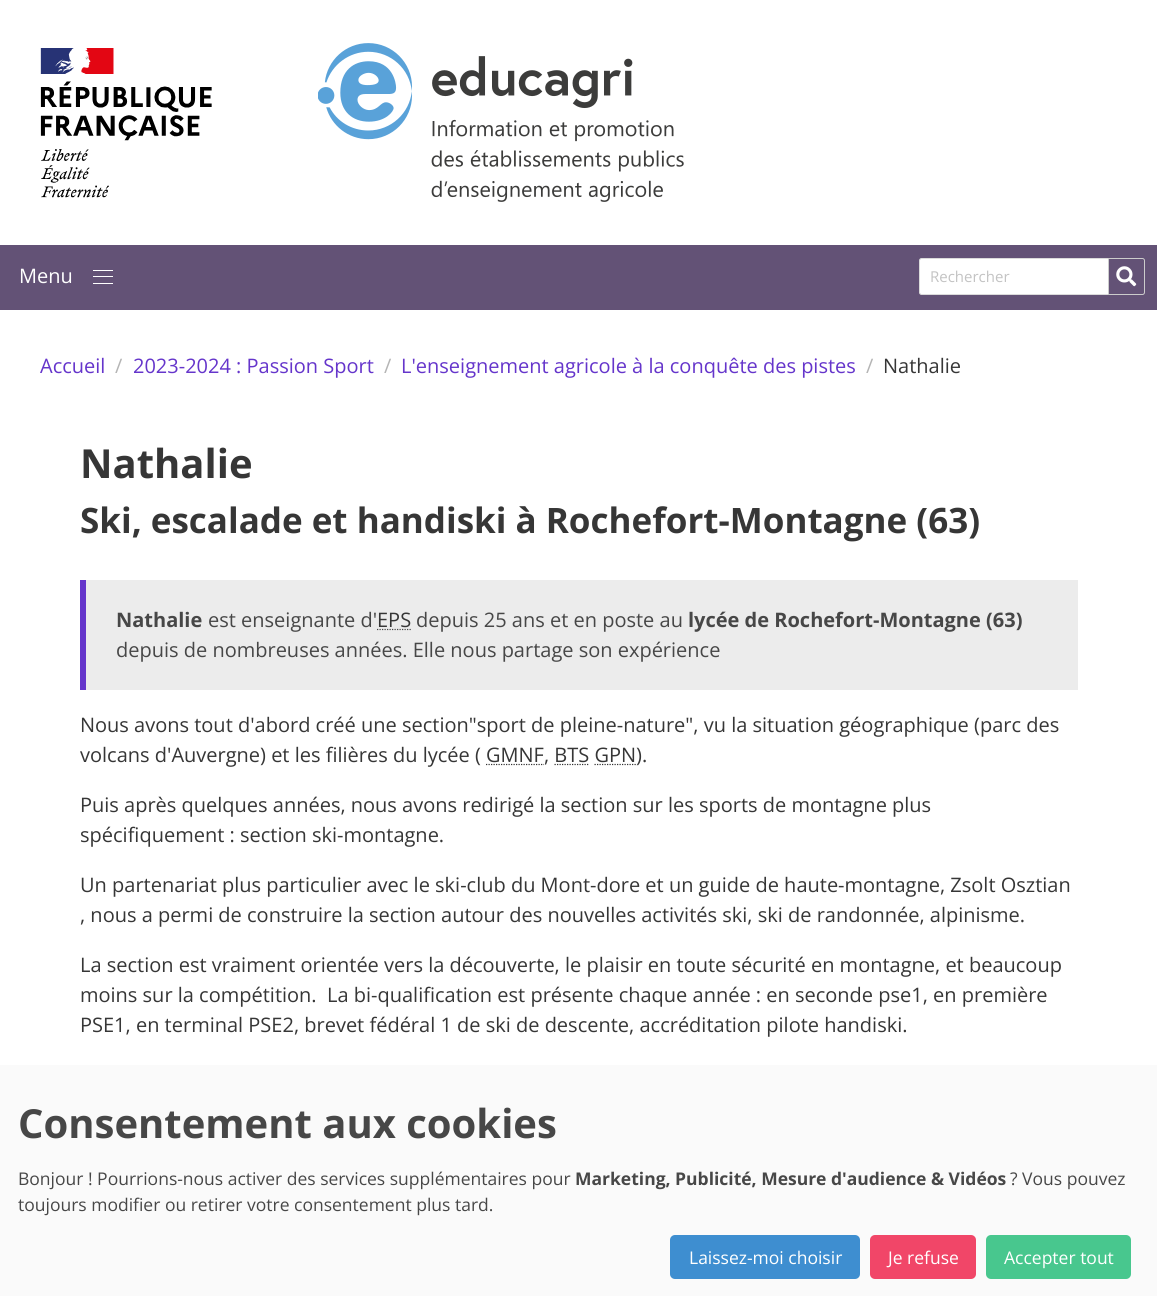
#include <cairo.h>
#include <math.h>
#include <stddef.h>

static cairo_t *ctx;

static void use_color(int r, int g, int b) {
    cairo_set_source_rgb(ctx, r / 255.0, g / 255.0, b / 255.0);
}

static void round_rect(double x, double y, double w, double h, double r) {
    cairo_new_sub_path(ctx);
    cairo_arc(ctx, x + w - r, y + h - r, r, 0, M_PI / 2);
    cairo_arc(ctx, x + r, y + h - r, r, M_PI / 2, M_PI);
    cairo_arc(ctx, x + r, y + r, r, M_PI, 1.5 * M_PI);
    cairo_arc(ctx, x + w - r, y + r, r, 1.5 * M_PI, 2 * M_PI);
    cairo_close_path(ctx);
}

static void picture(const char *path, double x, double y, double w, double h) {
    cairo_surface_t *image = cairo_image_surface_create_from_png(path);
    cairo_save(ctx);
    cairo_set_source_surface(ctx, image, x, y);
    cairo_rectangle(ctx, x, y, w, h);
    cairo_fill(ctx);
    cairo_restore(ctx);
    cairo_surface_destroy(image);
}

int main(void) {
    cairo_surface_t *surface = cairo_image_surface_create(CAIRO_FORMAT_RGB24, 1157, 1296);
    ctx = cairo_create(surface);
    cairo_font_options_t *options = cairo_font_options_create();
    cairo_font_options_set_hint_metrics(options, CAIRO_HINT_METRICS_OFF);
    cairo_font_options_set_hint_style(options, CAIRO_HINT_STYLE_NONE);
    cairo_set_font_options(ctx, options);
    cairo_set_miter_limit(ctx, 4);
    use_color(255, 255, 255);
    cairo_paint(ctx);
    picture("img1.png", 40, 48, 172, 150);
    picture("img2.png", 318, 43, 366, 159);
    use_color(99, 82, 118);
    cairo_rectangle(ctx, 0, 245, 1157, 65);
    cairo_fill(ctx);
    cairo_select_font_face(ctx, "Open Sans", CAIRO_FONT_SLANT_NORMAL, CAIRO_FONT_WEIGHT_NORMAL);
    cairo_set_font_size(ctx, 20);
    use_color(255, 255, 255);
    cairo_move_to(ctx, 19, 283);
    cairo_show_text(ctx, "Menu");
    cairo_rectangle(ctx, 93, 270, 20, 1);
    cairo_fill(ctx);
    cairo_rectangle(ctx, 93, 276, 20, 1);
    cairo_fill(ctx);
    cairo_rectangle(ctx, 93, 283, 20, 1);
    cairo_fill(ctx);
    cairo_new_path(ctx);
    cairo_move_to(ctx, 921.5, 258.5);
    cairo_line_to(ctx, 1108.5, 258.5);
    cairo_line_to(ctx, 1108.5, 294.5);
    cairo_line_to(ctx, 921.5, 294.5);
    cairo_curve_to(ctx, 920.5, 294.5, 919.5, 293.5, 919.5, 292.5);
    cairo_line_to(ctx, 919.5, 260.5);
    cairo_curve_to(ctx, 919.5, 259.5, 920.5, 258.5, 921.5, 258.5);
    cairo_close_path(ctx);
    cairo_fill_preserve(ctx);
    use_color(219, 219, 219);
    cairo_set_line_width(ctx, 1);
    cairo_stroke(ctx);
    cairo_set_font_size(ctx, 15);
    use_color(195, 195, 195);
    cairo_move_to(ctx, 930, 282);
    cairo_show_text(ctx, "Rechercher");
    use_color(99, 82, 118);
    cairo_new_path(ctx);
    cairo_move_to(ctx, 1108.5, 258.5);
    cairo_line_to(ctx, 1142.5, 258.5);
    cairo_curve_to(ctx, 1143.5, 258.5, 1144.5, 259.5, 1144.5, 260.5);
    cairo_line_to(ctx, 1144.5, 292.5);
    cairo_curve_to(ctx, 1144.5, 293.5, 1143.5, 294.5, 1142.5, 294.5);
    cairo_line_to(ctx, 1108.5, 294.5);
    cairo_close_path(ctx);
    cairo_fill_preserve(ctx);
    use_color(204, 204, 204);
    cairo_stroke(ctx);
    picture("img3.png", 1116, 266, 21, 21);
    cairo_set_font_size(ctx, 20);
    use_color(101, 53, 203);
    cairo_move_to(ctx, 40, 373);
    cairo_show_text(ctx, "Accueil");
    use_color(181, 181, 181);
    cairo_move_to(ctx, 115, 373);
    cairo_show_text(ctx, "/");
    use_color(101, 53, 203);
    cairo_move_to(ctx, 133, 373);
    cairo_show_text(ctx, "2023-2024 : Passion Sport");
    use_color(181, 181, 181);
    cairo_move_to(ctx, 384, 373);
    cairo_show_text(ctx, "/");
    use_color(101, 53, 203);
    cairo_move_to(ctx, 401, 373);
    cairo_show_text(ctx, "L'enseignement agricole à la conquête des pistes");
    use_color(181, 181, 181);
    cairo_move_to(ctx, 866, 373);
    cairo_show_text(ctx, "/");
    use_color(54, 54, 54);
    cairo_move_to(ctx, 883, 373);
    cairo_show_text(ctx, "Nathalie");
    cairo_select_font_face(ctx, "Open Sans", CAIRO_FONT_SLANT_NORMAL, CAIRO_FONT_WEIGHT_BOLD);
    cairo_set_font_size(ctx, 40);
    cairo_move_to(ctx, 80, 478);
    cairo_show_text(ctx, "Nathalie");
    cairo_set_font_size(ctx, 35);
    cairo_move_to(ctx, 80, 533);
    cairo_show_text(ctx, "Ski, escalade et handiski à Rochefort-Montagne (63)");
    use_color(236, 236, 236);
    cairo_rectangle(ctx, 86, 580, 992, 110);
    cairo_fill(ctx);
    use_color(101, 53, 203);
    cairo_rectangle(ctx, 80, 580, 6, 110);
    cairo_fill(ctx);
    cairo_set_font_size(ctx, 20);
    use_color(71, 71, 71);
    cairo_move_to(ctx, 116, 627);
    cairo_show_text(ctx, "Nathalie");
    cairo_select_font_face(ctx, "Open Sans", CAIRO_FONT_SLANT_NORMAL, CAIRO_FONT_WEIGHT_NORMAL);
    cairo_move_to(ctx, 208, 627);
    cairo_show_text(ctx, "est enseignante d'");
    use_color(54, 54, 54);
    cairo_move_to(ctx, 377, 627);
    cairo_show_text(ctx, "EPS");
    cairo_new_path(ctx);
    cairo_move_to(ctx, 377, 629.5);
    cairo_line_to(ctx, 411, 629.5);
    use_color(71, 71, 71);
    cairo_set_line_width(ctx, 1.2);
    cairo_set_dash(ctx, (double[]){1.25, 1.25}, 2, 0);
    cairo_stroke(ctx);
    cairo_move_to(ctx, 416, 627);
    cairo_show_text(ctx, "depuis 25 ans et en poste au");
    cairo_select_font_face(ctx, "Open Sans", CAIRO_FONT_SLANT_NORMAL, CAIRO_FONT_WEIGHT_BOLD);
    cairo_move_to(ctx, 688, 627);
    cairo_show_text(ctx, "lycée de Rochefort-Montagne (63)");
    cairo_select_font_face(ctx, "Open Sans", CAIRO_FONT_SLANT_NORMAL, CAIRO_FONT_WEIGHT_NORMAL);
    cairo_move_to(ctx, 116, 657);
    cairo_show_text(ctx, "depuis de nombreuses années. Elle nous partage son expérience");
    use_color(54, 54, 54);
    cairo_move_to(ctx, 80, 732);
    cairo_show_text(ctx, "Nous avons tout d'abord créé une section\"sport de pleine-nature\", vu la situation géographique (parc des");
    cairo_move_to(ctx, 80, 762);
    cairo_show_text(ctx, "volcans d'Auvergne) et les filières du lycée ( GMNF");
    cairo_move_to(ctx, 544, 762);
    cairo_show_text(ctx, ", BTS GPN");
    cairo_move_to(ctx, 636, 762);
    cairo_show_text(ctx, ").");
    cairo_new_path(ctx);
    cairo_move_to(ctx, 486, 764.5);
    cairo_line_to(ctx, 544, 764.5);
    use_color(51, 51, 51);
    cairo_stroke(ctx);
    cairo_new_path(ctx);
    cairo_move_to(ctx, 554.5, 764.5);
    cairo_line_to(ctx, 589, 764.5);
    cairo_stroke(ctx);
    cairo_new_path(ctx);
    cairo_move_to(ctx, 594.5, 764.5);
    cairo_line_to(ctx, 636, 764.5);
    cairo_stroke(ctx);
    use_color(54, 54, 54);
    cairo_move_to(ctx, 80, 812);
    cairo_show_text(ctx, "Puis après quelques années, nous avons redirigé la section sur les sports de montagne plus");
    cairo_move_to(ctx, 80, 842);
    cairo_show_text(ctx, "spécifiquement : section ski-montagne.");
    cairo_move_to(ctx, 80, 892);
    cairo_show_text(ctx, "Un partenariat plus particulier avec le ski-club du Mont-dore et un guide de haute-montagne, Zsolt Osztian");
    cairo_move_to(ctx, 80, 922);
    cairo_show_text(ctx, ", nous a permi de construire la section autour des nouvelles activités ski, ski de randonnée, alpinisme.");
    cairo_move_to(ctx, 80, 972);
    cairo_show_text(ctx, "La section est vraiment orientée vers la découverte, le plaisir en toute sécurité en montagne, et beaucoup");
    cairo_move_to(ctx, 80, 1002);
    cairo_show_text(ctx, "moins sur la compétition.  La bi-qualification est présente chaque année : en seconde pse1, en première");
    cairo_move_to(ctx, 80, 1032);
    cairo_show_text(ctx, "PSE1, en terminal PSE2, brevet fédéral 1 de ski de descente, accréditation pilote handiski.");
    use_color(250, 250, 250);
    cairo_rectangle(ctx, 0, 1065, 1157, 231);
    cairo_fill(ctx);
    cairo_select_font_face(ctx, "Open Sans", CAIRO_FONT_SLANT_NORMAL, CAIRO_FONT_WEIGHT_BOLD);
    cairo_set_font_size(ctx, 40);
    use_color(71, 71, 71);
    cairo_move_to(ctx, 18, 1138);
    cairo_show_text(ctx, "Consentement aux cookies");
    cairo_select_font_face(ctx, "Open Sans", CAIRO_FONT_SLANT_NORMAL, CAIRO_FONT_WEIGHT_NORMAL);
    cairo_set_font_size(ctx, 17.5);
    cairo_move_to(ctx, 18, 1185);
    cairo_show_text(ctx, "Bonjour ! Pourrions-nous activer des services supplémentaires pour");
    cairo_select_font_face(ctx, "Open Sans", CAIRO_FONT_SLANT_NORMAL, CAIRO_FONT_WEIGHT_BOLD);
    cairo_move_to(ctx, 575, 1185);
    cairo_show_text(ctx, "Marketing, Publicité, Mesure d'audience & Vidéos");
    cairo_select_font_face(ctx, "Open Sans", CAIRO_FONT_SLANT_NORMAL, CAIRO_FONT_WEIGHT_NORMAL);
    cairo_move_to(ctx, 1010, 1185);
    cairo_show_text(ctx, "? Vous pouvez");
    cairo_move_to(ctx, 18, 1211);
    cairo_show_text(ctx, "toujours modifier ou retirer votre consentement plus tard.");
    use_color(62, 142, 208);
    round_rect(670, 1235, 190, 44, 5);
    cairo_fill(ctx);
    use_color(255, 255, 255);
    cairo_move_to(ctx, 689, 1264);
    cairo_show_text(ctx, "Laissez-moi choisir");
    use_color(241, 70, 104);
    round_rect(870, 1235, 106, 44, 5);
    cairo_fill(ctx);
    use_color(255, 255, 255);
    cairo_move_to(ctx, 888, 1264);
    cairo_show_text(ctx, "Je refuse");
    use_color(72, 199, 142);
    round_rect(986, 1235, 145, 44, 5);
    cairo_fill(ctx);
    use_color(255, 255, 255);
    cairo_move_to(ctx, 1004, 1264);
    cairo_show_text(ctx, "Accepter tout");
    cairo_surface_write_to_png(surface, "result.png");
    cairo_font_options_destroy(options);
    cairo_destroy(ctx);
    cairo_surface_destroy(surface);
    return 0;
}
